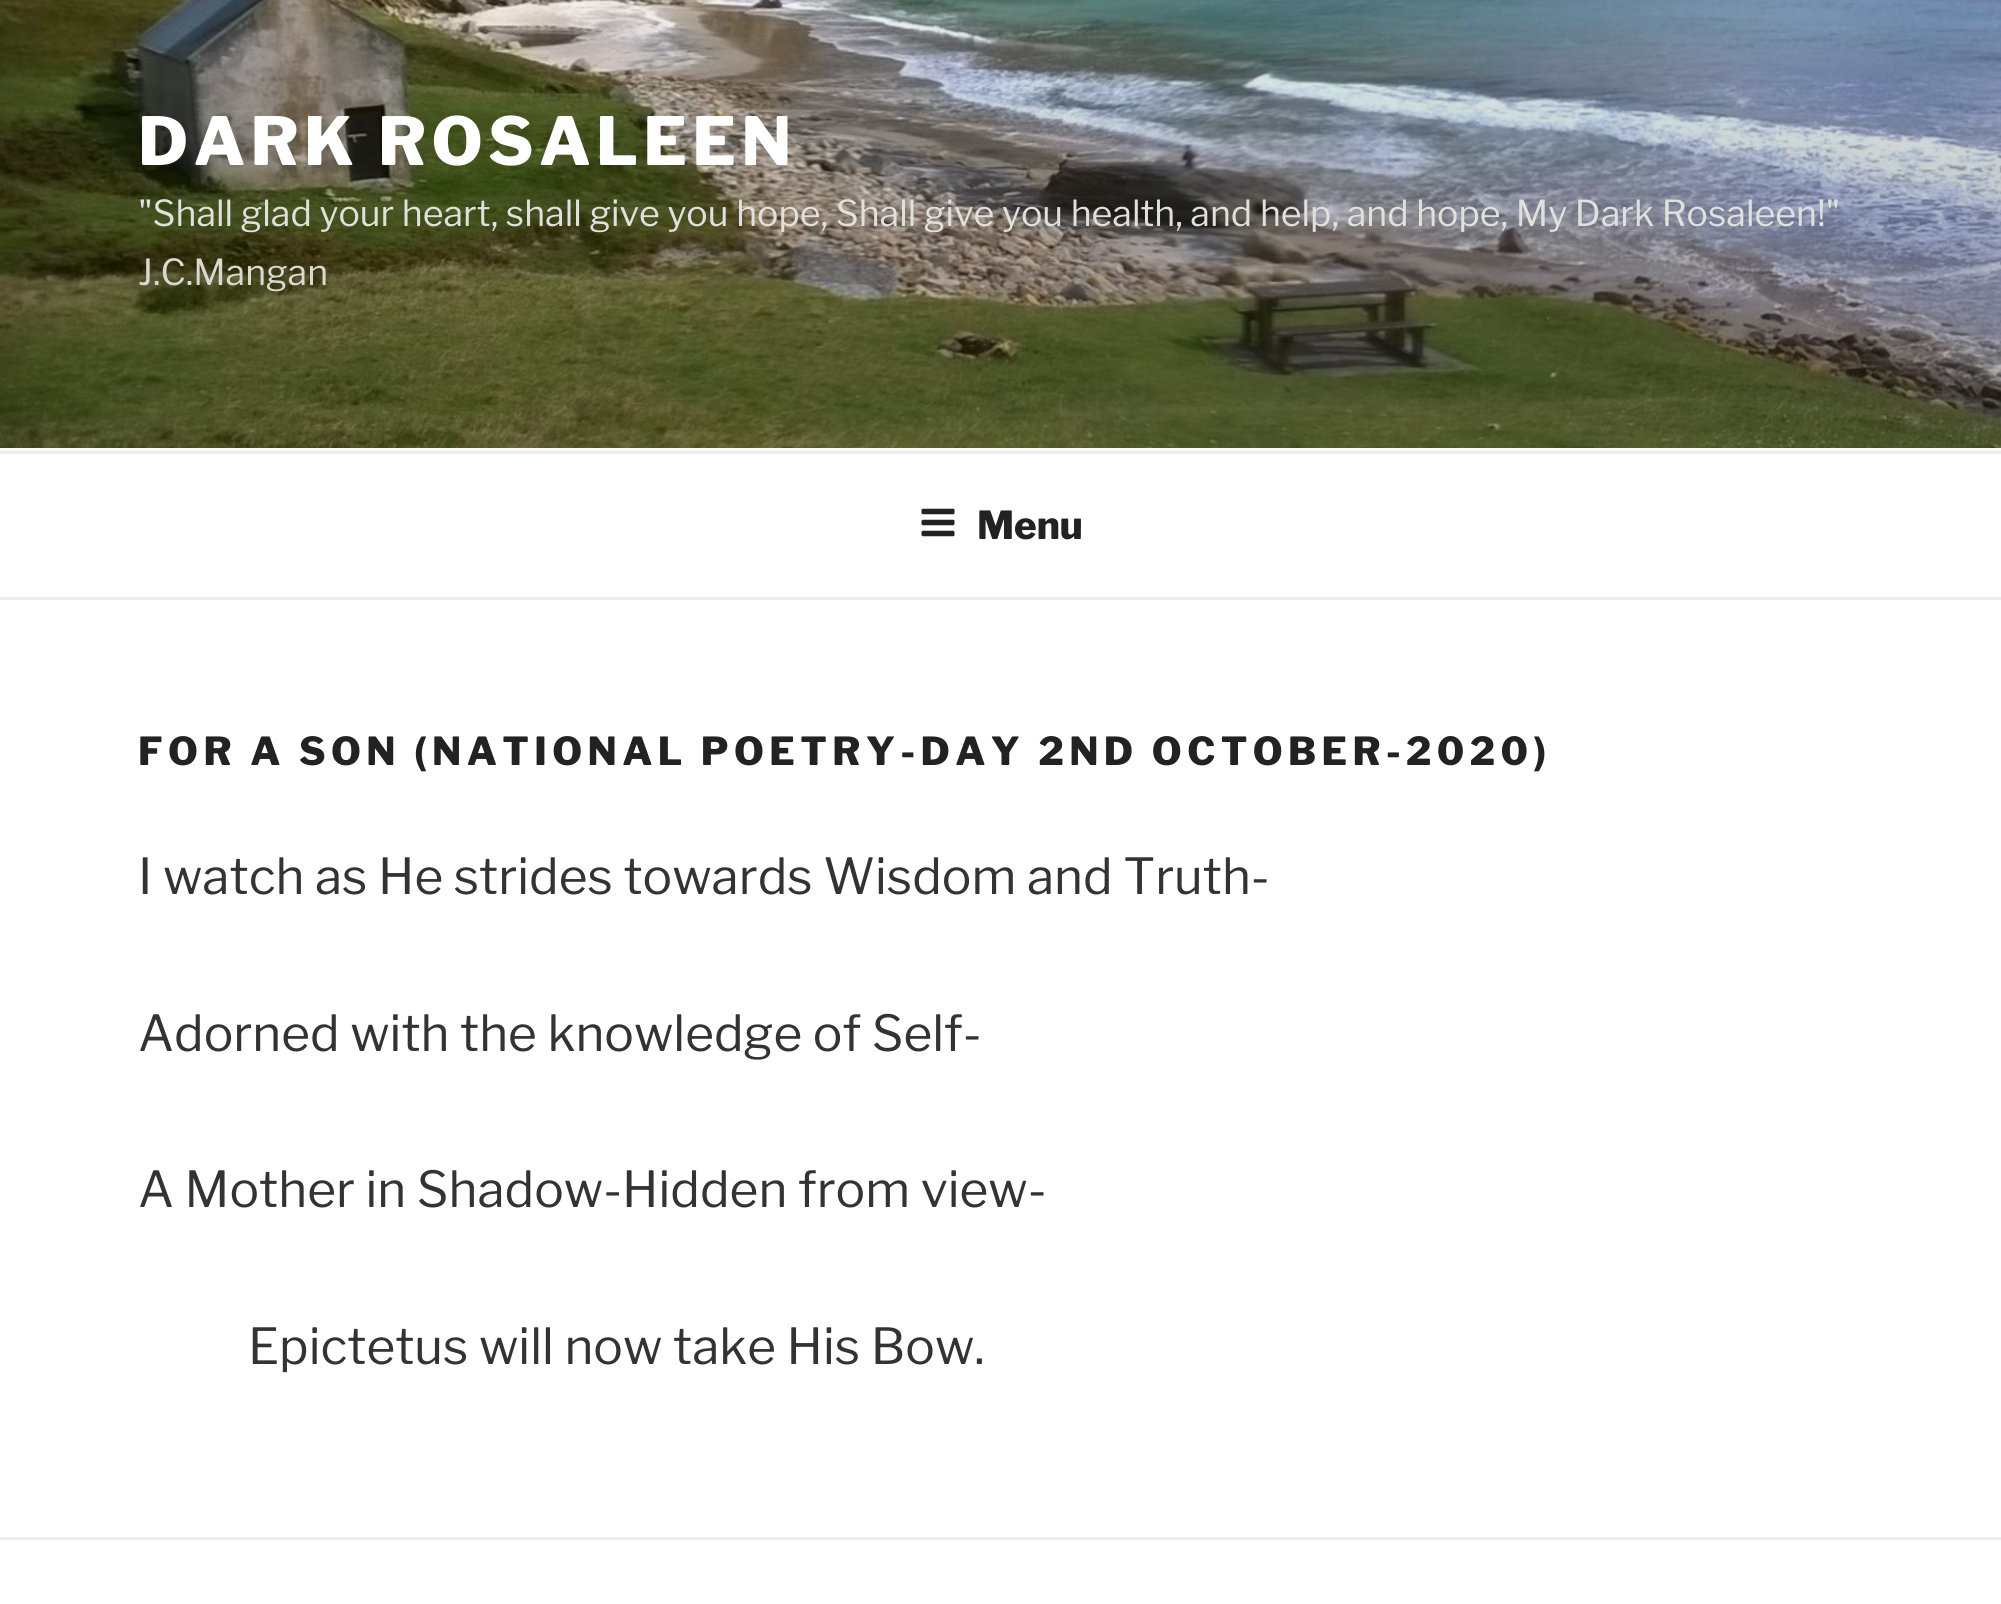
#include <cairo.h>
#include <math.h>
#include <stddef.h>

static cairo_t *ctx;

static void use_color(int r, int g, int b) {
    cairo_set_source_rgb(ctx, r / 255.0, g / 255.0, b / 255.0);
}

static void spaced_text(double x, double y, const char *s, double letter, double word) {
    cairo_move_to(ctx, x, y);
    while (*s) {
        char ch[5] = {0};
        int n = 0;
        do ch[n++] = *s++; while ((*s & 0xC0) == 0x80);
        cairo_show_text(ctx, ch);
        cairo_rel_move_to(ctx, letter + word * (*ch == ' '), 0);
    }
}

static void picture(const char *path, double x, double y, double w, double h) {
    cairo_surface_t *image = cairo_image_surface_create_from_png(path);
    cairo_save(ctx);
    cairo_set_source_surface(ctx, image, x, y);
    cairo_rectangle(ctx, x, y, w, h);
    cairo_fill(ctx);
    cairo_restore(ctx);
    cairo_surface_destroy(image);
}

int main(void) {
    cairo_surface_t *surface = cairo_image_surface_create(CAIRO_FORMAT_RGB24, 2001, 1604);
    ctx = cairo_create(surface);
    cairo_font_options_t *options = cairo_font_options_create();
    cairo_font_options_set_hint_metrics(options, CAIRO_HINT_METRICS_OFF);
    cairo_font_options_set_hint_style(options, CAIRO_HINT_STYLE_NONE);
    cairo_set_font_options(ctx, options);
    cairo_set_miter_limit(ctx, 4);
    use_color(255, 255, 255);
    cairo_paint(ctx);
    use_color(250, 250, 250);
    cairo_rectangle(ctx, 0, 448, 2001, 3);
    cairo_fill(ctx);
    picture("img1.png", 0, 0, 2001, 448);
    cairo_select_font_face(ctx, "Libre Franklin Thin", CAIRO_FONT_SLANT_NORMAL, CAIRO_FONT_WEIGHT_NORMAL);
    cairo_set_font_size(ctx, 66);
    use_color(255, 255, 255);
    spaced_text(138, 165, "DARK ROSALEEN", 5.25, 0);
    cairo_select_font_face(ctx, "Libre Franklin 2 Thin", CAIRO_FONT_SLANT_NORMAL, CAIRO_FONT_WEIGHT_NORMAL);
    cairo_set_font_size(ctx, 35.75);
    use_color(224, 224, 221);
    cairo_move_to(ctx, 138, 226);
    cairo_show_text(ctx, "\"Shall glad your heart, shall give you hope, Shall give you health, and help, and hope, My Dark Rosaleen!\"");
    use_color(217, 217, 210);
    cairo_move_to(ctx, 138, 285);
    cairo_show_text(ctx, "J.C.Mangan");
    use_color(238, 238, 238);
    cairo_rectangle(ctx, 0, 451, 2001, 3);
    cairo_fill(ctx);
    cairo_rectangle(ctx, 0, 597, 2001, 3);
    cairo_fill(ctx);
    picture("img2.png", 921, 508, 34, 29);
    cairo_select_font_face(ctx, "Libre Franklin Thin", CAIRO_FONT_SLANT_NORMAL, CAIRO_FONT_WEIGHT_NORMAL);
    cairo_set_font_size(ctx, 38.5);
    use_color(34, 34, 34);
    cairo_move_to(ctx, 977, 539);
    cairo_show_text(ctx, "Menu");
    spaced_text(138, 765, "FOR A SON (NATIONAL POETRY-DAY 2ND OCTOBER-2020)", 5.4, 0);
    cairo_select_font_face(ctx, "Libre Franklin 2 Thin", CAIRO_FONT_SLANT_NORMAL, CAIRO_FONT_WEIGHT_NORMAL);
    cairo_set_font_size(ctx, 49.5);
    use_color(51, 51, 51);
    cairo_move_to(ctx, 138, 894);
    cairo_show_text(ctx, "I watch as He strides towards Wisdom and Truth-");
    cairo_move_to(ctx, 138, 1051);
    cairo_show_text(ctx, "Adorned with the knowledge of Self-");
    cairo_move_to(ctx, 138, 1207);
    cairo_show_text(ctx, "A Mother in Shadow-Hidden from view-");
    cairo_move_to(ctx, 248, 1364);
    cairo_show_text(ctx, "Epictetus will now take His Bow.");
    use_color(238, 238, 238);
    cairo_rectangle(ctx, 0, 1537, 2001, 3);
    cairo_fill(ctx);
    cairo_surface_write_to_png(surface, "result.png");
    cairo_font_options_destroy(options);
    cairo_destroy(ctx);
    cairo_surface_destroy(surface);
    return 0;
}
